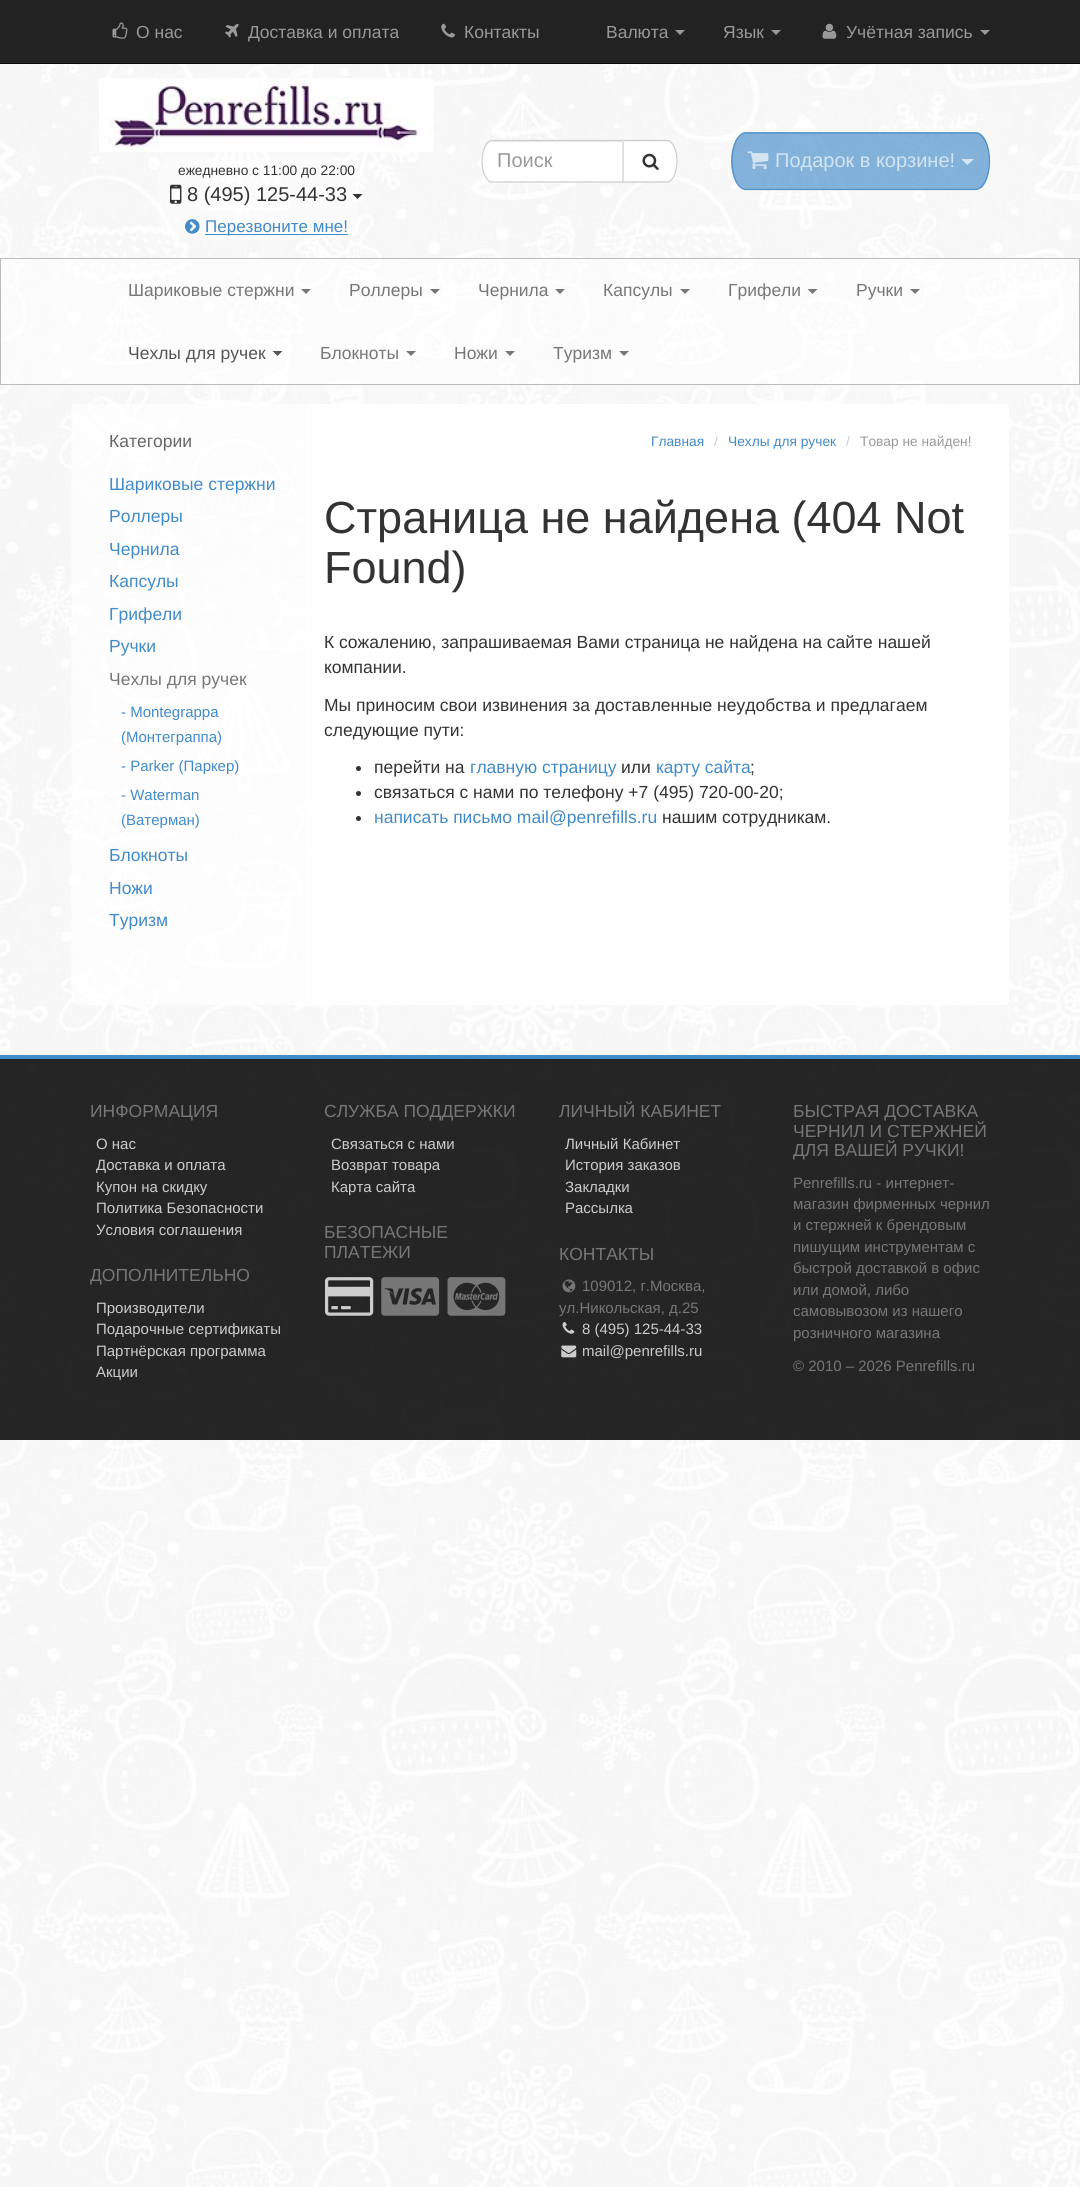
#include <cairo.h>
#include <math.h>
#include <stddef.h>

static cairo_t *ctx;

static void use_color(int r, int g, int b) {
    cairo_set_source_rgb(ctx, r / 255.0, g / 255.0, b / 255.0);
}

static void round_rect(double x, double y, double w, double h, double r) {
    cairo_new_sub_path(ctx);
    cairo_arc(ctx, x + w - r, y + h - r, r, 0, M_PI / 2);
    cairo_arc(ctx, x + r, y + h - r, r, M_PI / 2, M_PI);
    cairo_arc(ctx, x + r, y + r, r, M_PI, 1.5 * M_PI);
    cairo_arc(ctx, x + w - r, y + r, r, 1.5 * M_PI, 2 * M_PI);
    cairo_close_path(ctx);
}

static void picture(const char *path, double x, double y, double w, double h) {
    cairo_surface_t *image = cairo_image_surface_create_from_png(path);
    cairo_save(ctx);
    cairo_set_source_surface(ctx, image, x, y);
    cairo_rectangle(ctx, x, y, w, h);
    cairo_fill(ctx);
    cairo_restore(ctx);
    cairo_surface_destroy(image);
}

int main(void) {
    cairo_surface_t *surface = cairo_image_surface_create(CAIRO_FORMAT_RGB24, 1080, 2187);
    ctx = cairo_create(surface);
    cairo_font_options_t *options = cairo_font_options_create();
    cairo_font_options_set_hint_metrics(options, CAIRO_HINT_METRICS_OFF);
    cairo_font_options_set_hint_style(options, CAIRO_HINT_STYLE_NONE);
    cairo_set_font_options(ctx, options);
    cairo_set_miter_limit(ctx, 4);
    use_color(255, 255, 255);
    cairo_paint(ctx);
    picture("img1.png", 0, 64, 1080, 2123);
    use_color(34, 34, 34);
    cairo_rectangle(ctx, 0, 0, 1080, 63);
    cairo_fill(ctx);
    use_color(8, 8, 8);
    cairo_rectangle(ctx, 0, 63, 1080, 1);
    cairo_fill(ctx);
    picture("img2.png", 112, 22, 16, 17);
    cairo_select_font_face(ctx, "Liberation Sans", CAIRO_FONT_SLANT_NORMAL, CAIRO_FONT_WEIGHT_NORMAL);
    cairo_set_font_size(ctx, 17.5);
    use_color(153, 153, 153);
    cairo_move_to(ctx, 136, 38);
    cairo_show_text(ctx, "О нас");
    picture("img3.png", 225, 23, 14, 15);
    cairo_move_to(ctx, 248, 38);
    cairo_show_text(ctx, "Доставка и оплата");
    picture("img4.png", 441, 23, 14, 15);
    cairo_move_to(ctx, 464, 38);
    cairo_show_text(ctx, "Контакты");
    cairo_move_to(ctx, 606, 38);
    cairo_show_text(ctx, "Валюта");
    cairo_new_path(ctx);
    cairo_move_to(ctx, 675, 30);
    cairo_line_to(ctx, 685, 30);
    cairo_line_to(ctx, 680, 35);
    cairo_close_path(ctx);
    cairo_fill(ctx);
    cairo_move_to(ctx, 723, 38);
    cairo_show_text(ctx, "Язык");
    cairo_new_path(ctx);
    cairo_move_to(ctx, 771, 30);
    cairo_line_to(ctx, 781, 30);
    cairo_line_to(ctx, 776, 35);
    cairo_close_path(ctx);
    cairo_fill(ctx);
    picture("img5.png", 822, 23, 15, 16);
    cairo_move_to(ctx, 846, 38);
    cairo_show_text(ctx, "Учётная запись");
    cairo_new_path(ctx);
    cairo_move_to(ctx, 980, 30);
    cairo_line_to(ctx, 990, 30);
    cairo_line_to(ctx, 985, 35);
    cairo_close_path(ctx);
    cairo_fill(ctx);
    use_color(255, 255, 255);
    cairo_new_path(ctx);
    cairo_move_to(ctx, 622, 140);
    cairo_line_to(ctx, 667, 140);
    cairo_curve_to(ctx, 673, 140, 678, 150, 678, 161);
    cairo_curve_to(ctx, 678, 173, 673, 182, 667, 182);
    cairo_line_to(ctx, 622, 182);
    cairo_close_path(ctx);
    cairo_fill(ctx);
    cairo_new_path(ctx);
    cairo_move_to(ctx, 623, 140.5);
    cairo_line_to(ctx, 667, 140.5);
    cairo_curve_to(ctx, 672.5, 140.5, 677, 150, 677, 161);
    cairo_curve_to(ctx, 677, 172.5, 672.5, 182, 667, 182);
    cairo_line_to(ctx, 623, 182);
    cairo_close_path(ctx);
    use_color(204, 204, 204);
    cairo_set_line_width(ctx, 1.2);
    cairo_stroke(ctx);
    use_color(255, 255, 255);
    cairo_new_path(ctx);
    cairo_move_to(ctx, 492, 140);
    cairo_line_to(ctx, 624, 140);
    cairo_line_to(ctx, 624, 182);
    cairo_line_to(ctx, 492, 182);
    cairo_curve_to(ctx, 486, 182, 481, 173, 481, 161);
    cairo_curve_to(ctx, 481, 150, 486, 140, 492, 140);
    cairo_close_path(ctx);
    cairo_fill(ctx);
    use_color(236, 236, 236);
    cairo_new_path(ctx);
    cairo_move_to(ctx, 492, 142);
    cairo_line_to(ctx, 622, 142);
    cairo_line_to(ctx, 622, 181);
    cairo_line_to(ctx, 622, 141);
    cairo_line_to(ctx, 492, 141);
    cairo_curve_to(ctx, 489, 141, 486, 145, 484, 151);
    cairo_curve_to(ctx, 486, 145, 489, 142, 492, 142);
    cairo_close_path(ctx);
    cairo_fill(ctx);
    cairo_new_path(ctx);
    cairo_move_to(ctx, 492, 140.5);
    cairo_line_to(ctx, 623, 140.5);
    cairo_line_to(ctx, 623, 182);
    cairo_line_to(ctx, 492, 182);
    cairo_curve_to(ctx, 486.5, 182, 482, 172.5, 482, 161);
    cairo_curve_to(ctx, 482, 150, 486.5, 140.5, 492, 140.5);
    cairo_close_path(ctx);
    use_color(204, 204, 204);
    cairo_stroke(ctx);
    cairo_set_font_size(ctx, 20);
    use_color(153, 153, 153);
    cairo_move_to(ctx, 497, 167);
    cairo_show_text(ctx, "Поиск");
    picture("img6.png", 642, 153, 17, 17);
    cairo_set_source_rgba(ctx, 0.259, 0.545, 0.792, 0.65);
    cairo_new_path(ctx);
    cairo_move_to(ctx, 746, 132);
    cairo_line_to(ctx, 976, 132);
    cairo_curve_to(ctx, 984, 132, 990, 145, 990, 161);
    cairo_curve_to(ctx, 990, 177, 984, 190, 976, 190);
    cairo_line_to(ctx, 746, 190);
    cairo_curve_to(ctx, 738, 190, 731, 177, 731, 161);
    cairo_curve_to(ctx, 731, 145, 738, 132, 746, 132);
    cairo_close_path(ctx);
    cairo_fill(ctx);
    cairo_new_path(ctx);
    cairo_move_to(ctx, 745.5, 133);
    cairo_line_to(ctx, 975.5, 133);
    cairo_curve_to(ctx, 983, 133, 989.5, 145.5, 989.5, 161);
    cairo_curve_to(ctx, 989.5, 177, 983, 189.5, 975.5, 189.5);
    cairo_line_to(ctx, 745.5, 189.5);
    cairo_curve_to(ctx, 738, 189.5, 732, 177, 732, 161);
    cairo_curve_to(ctx, 732, 145.5, 738, 133, 745.5, 133);
    cairo_close_path(ctx);
    cairo_set_source_rgba(ctx, 0.208, 0.494, 0.741, 0.65);
    cairo_stroke(ctx);
    picture("img7.png", 747, 151, 22, 18);
    use_color(211, 228, 242);
    cairo_move_to(ctx, 775, 167);
    cairo_show_text(ctx, "Подарок в корзине!");
    cairo_set_source_rgba(ctx, 1, 1, 1, 0.65);
    cairo_new_path(ctx);
    cairo_move_to(ctx, 961, 159);
    cairo_line_to(ctx, 974, 159);
    cairo_line_to(ctx, 967.5, 165);
    cairo_close_path(ctx);
    cairo_fill(ctx);
    picture("img8.png", 99, 78, 335, 74);
    picture("img9.png", 159, 157, 200, 79);
    cairo_set_font_size(ctx, 13.75);
    use_color(51, 51, 51);
    cairo_move_to(ctx, 178, 175);
    cairo_show_text(ctx, "ежедневно c 11:00 до 22:00");
    picture("img10.png", 170, 184, 12, 20);
    cairo_set_font_size(ctx, 20);
    cairo_move_to(ctx, 187, 201);
    cairo_show_text(ctx, "8 (495) 125-44-33");
    cairo_new_path(ctx);
    cairo_move_to(ctx, 352.5, 194);
    cairo_line_to(ctx, 362.5, 194);
    cairo_line_to(ctx, 357.5, 199);
    cairo_close_path(ctx);
    cairo_fill(ctx);
    picture("img11.png", 185, 219, 15, 15);
    use_color(66, 139, 202);
    cairo_rectangle(ctx, 205, 234, 143, 1);
    cairo_fill(ctx);
    cairo_set_font_size(ctx, 17);
    cairo_move_to(ctx, 205, 232);
    cairo_show_text(ctx, "Перезвоните мне!");
    cairo_set_source_rgba(ctx, 1, 1, 1, 0.55);
    cairo_rectangle(ctx, 0.5, 258.5, 1079, 126);
    cairo_fill_preserve(ctx);
    use_color(187, 187, 187);
    cairo_set_line_width(ctx, 1);
    cairo_stroke(ctx);
    cairo_set_font_size(ctx, 17.5);
    use_color(119, 119, 119);
    cairo_move_to(ctx, 128, 296);
    cairo_show_text(ctx, "Шариковые стержни");
    cairo_new_path(ctx);
    cairo_move_to(ctx, 301, 289);
    cairo_line_to(ctx, 311, 289);
    cairo_line_to(ctx, 306, 294);
    cairo_close_path(ctx);
    cairo_fill(ctx);
    cairo_move_to(ctx, 349, 296);
    cairo_show_text(ctx, "Роллеры");
    cairo_new_path(ctx);
    cairo_move_to(ctx, 430, 289);
    cairo_line_to(ctx, 440, 289);
    cairo_line_to(ctx, 435, 294);
    cairo_close_path(ctx);
    cairo_fill(ctx);
    cairo_move_to(ctx, 478, 296);
    cairo_show_text(ctx, "Чернила");
    cairo_new_path(ctx);
    cairo_move_to(ctx, 555, 289);
    cairo_line_to(ctx, 565, 289);
    cairo_line_to(ctx, 560, 294);
    cairo_close_path(ctx);
    cairo_fill(ctx);
    cairo_move_to(ctx, 603, 296);
    cairo_show_text(ctx, "Капсулы");
    cairo_new_path(ctx);
    cairo_move_to(ctx, 680, 289);
    cairo_line_to(ctx, 690, 289);
    cairo_line_to(ctx, 685, 294);
    cairo_close_path(ctx);
    cairo_fill(ctx);
    cairo_move_to(ctx, 728, 296);
    cairo_show_text(ctx, "Грифели");
    cairo_new_path(ctx);
    cairo_move_to(ctx, 807.5, 289);
    cairo_line_to(ctx, 817.5, 289);
    cairo_line_to(ctx, 812.5, 294);
    cairo_close_path(ctx);
    cairo_fill(ctx);
    cairo_move_to(ctx, 856, 296);
    cairo_show_text(ctx, "Ручки");
    cairo_new_path(ctx);
    cairo_move_to(ctx, 910, 289);
    cairo_line_to(ctx, 920, 289);
    cairo_line_to(ctx, 915, 294);
    cairo_close_path(ctx);
    cairo_fill(ctx);
    use_color(85, 85, 85);
    cairo_move_to(ctx, 128, 359);
    cairo_show_text(ctx, "Чехлы для ручек");
    cairo_new_path(ctx);
    cairo_move_to(ctx, 272.5, 351);
    cairo_line_to(ctx, 282.5, 351);
    cairo_line_to(ctx, 277.5, 356);
    cairo_close_path(ctx);
    cairo_fill(ctx);
    use_color(119, 119, 119);
    cairo_move_to(ctx, 320, 359);
    cairo_show_text(ctx, "Блокноты");
    cairo_new_path(ctx);
    cairo_move_to(ctx, 406, 351);
    cairo_line_to(ctx, 416, 351);
    cairo_line_to(ctx, 411, 356);
    cairo_close_path(ctx);
    cairo_fill(ctx);
    cairo_move_to(ctx, 454, 359);
    cairo_show_text(ctx, "Ножи");
    cairo_new_path(ctx);
    cairo_move_to(ctx, 505, 351);
    cairo_line_to(ctx, 515, 351);
    cairo_line_to(ctx, 510, 356);
    cairo_close_path(ctx);
    cairo_fill(ctx);
    cairo_move_to(ctx, 553, 359);
    cairo_show_text(ctx, "Туризм");
    cairo_new_path(ctx);
    cairo_move_to(ctx, 619, 351);
    cairo_line_to(ctx, 629, 351);
    cairo_line_to(ctx, 624, 356);
    cairo_close_path(ctx);
    cairo_fill(ctx);
    picture("img12.png", 71, 404, 937, 601);
    use_color(102, 102, 102);
    cairo_move_to(ctx, 109, 447);
    cairo_show_text(ctx, "Категории");
    use_color(66, 139, 202);
    cairo_move_to(ctx, 109, 490);
    cairo_show_text(ctx, "Шариковые стержни");
    cairo_move_to(ctx, 109, 522);
    cairo_show_text(ctx, "Роллеры");
    cairo_move_to(ctx, 109, 555);
    cairo_show_text(ctx, "Чернила");
    cairo_move_to(ctx, 109, 587);
    cairo_show_text(ctx, "Капсулы");
    cairo_move_to(ctx, 109, 620);
    cairo_show_text(ctx, "Грифели");
    cairo_move_to(ctx, 109, 652);
    cairo_show_text(ctx, "Ручки");
    use_color(119, 119, 119);
    cairo_move_to(ctx, 109, 685);
    cairo_show_text(ctx, "Чехлы для ручек");
    cairo_set_font_size(ctx, 15);
    use_color(66, 139, 202);
    cairo_move_to(ctx, 121, 717);
    cairo_show_text(ctx, "- Montegrappa");
    cairo_move_to(ctx, 121, 742);
    cairo_show_text(ctx, "(Монтеграппа)");
    cairo_move_to(ctx, 121, 771);
    cairo_show_text(ctx, "- Parker (Паркер)");
    cairo_move_to(ctx, 121, 800);
    cairo_show_text(ctx, "- Waterman");
    cairo_move_to(ctx, 121, 825);
    cairo_show_text(ctx, "(Ватерман)");
    cairo_set_font_size(ctx, 17.5);
    cairo_move_to(ctx, 109, 861);
    cairo_show_text(ctx, "Блокноты");
    cairo_move_to(ctx, 109, 894);
    cairo_show_text(ctx, "Ножи");
    cairo_move_to(ctx, 109, 926);
    cairo_show_text(ctx, "Туризм");
    use_color(255, 255, 255);
    round_rect(306, 404, 703, 601, 5);
    cairo_fill(ctx);
    cairo_set_font_size(ctx, 13.75);
    use_color(66, 139, 202);
    cairo_move_to(ctx, 651, 446);
    cairo_show_text(ctx, "Главная");
    use_color(204, 204, 204);
    cairo_move_to(ctx, 714, 446);
    cairo_show_text(ctx, "/");
    use_color(66, 139, 202);
    cairo_move_to(ctx, 728, 446);
    cairo_show_text(ctx, "Чехлы для ручек");
    use_color(204, 204, 204);
    cairo_move_to(ctx, 846, 446);
    cairo_show_text(ctx, "/");
    use_color(153, 153, 153);
    cairo_move_to(ctx, 860, 446);
    cairo_show_text(ctx, "Товар не найден!");
    cairo_set_font_size(ctx, 45);
    use_color(51, 51, 51);
    cairo_move_to(ctx, 324, 533);
    cairo_show_text(ctx, "Страница не найдена (404 Not");
    cairo_move_to(ctx, 324, 583);
    cairo_show_text(ctx, "Found)");
    cairo_set_font_size(ctx, 17.5);
    cairo_move_to(ctx, 324, 648);
    cairo_show_text(ctx, "К сожалению, запрашиваемая Вами страница не найдена на сайте нашей");
    cairo_move_to(ctx, 324, 673);
    cairo_show_text(ctx, "компании.");
    cairo_move_to(ctx, 324, 711);
    cairo_show_text(ctx, "Мы приносим свои извинения за доставленные неудобства и предлагаем");
    cairo_move_to(ctx, 324, 736);
    cairo_show_text(ctx, "следующие пути:");
    cairo_new_path(ctx);
    cairo_arc(ctx, 358.5, 768.5, 2.5, 0, 2 * M_PI);
    cairo_fill(ctx);
    cairo_move_to(ctx, 374, 773);
    cairo_show_text(ctx, "перейти на");
    use_color(66, 139, 202);
    cairo_move_to(ctx, 470, 773);
    cairo_show_text(ctx, "главную страницу");
    use_color(51, 51, 51);
    cairo_move_to(ctx, 621, 773);
    cairo_show_text(ctx, "или");
    use_color(66, 139, 202);
    cairo_move_to(ctx, 656, 773);
    cairo_show_text(ctx, "карту сайта");
    use_color(51, 51, 51);
    cairo_move_to(ctx, 750, 773);
    cairo_show_text(ctx, ";");
    cairo_new_path(ctx);
    cairo_arc(ctx, 358.5, 793.5, 2.5, 0, 2 * M_PI);
    cairo_fill(ctx);
    cairo_move_to(ctx, 374, 798);
    cairo_show_text(ctx, "связаться с нами по телефону +7 (495) 720-00-20;");
    cairo_new_path(ctx);
    cairo_arc(ctx, 358.5, 818.5, 2.5, 0, 2 * M_PI);
    cairo_fill(ctx);
    use_color(66, 139, 202);
    cairo_move_to(ctx, 374, 823);
    cairo_show_text(ctx, "написать письмо mail@penrefills.ru");
    use_color(51, 51, 51);
    cairo_move_to(ctx, 662, 823);
    cairo_show_text(ctx, "нашим сотрудникам.");
    cairo_set_source_rgba(ctx, 0, 0, 0, 0.85);
    cairo_rectangle(ctx, 0, 1059, 1080, 381);
    cairo_fill(ctx);
    use_color(66, 139, 202);
    cairo_rectangle(ctx, 0, 1055, 1080, 4);
    cairo_fill(ctx);
    use_color(119, 119, 119);
    cairo_move_to(ctx, 90, 1117);
    cairo_show_text(ctx, "ИНФОРМАЦИЯ");
    cairo_set_font_size(ctx, 15);
    use_color(204, 204, 204);
    cairo_move_to(ctx, 96, 1149);
    cairo_show_text(ctx, "О нас");
    cairo_move_to(ctx, 96, 1170);
    cairo_show_text(ctx, "Доставка и оплата");
    cairo_move_to(ctx, 96, 1192);
    cairo_show_text(ctx, "Купон на скидку");
    cairo_move_to(ctx, 96, 1213);
    cairo_show_text(ctx, "Политика Безопасности");
    cairo_move_to(ctx, 96, 1235);
    cairo_show_text(ctx, "Условия соглашения");
    cairo_set_font_size(ctx, 17.5);
    use_color(119, 119, 119);
    cairo_move_to(ctx, 90, 1281);
    cairo_show_text(ctx, "ДОПОЛНИТЕЛЬНО");
    cairo_set_font_size(ctx, 15);
    use_color(204, 204, 204);
    cairo_move_to(ctx, 96, 1313);
    cairo_show_text(ctx, "Производители");
    cairo_move_to(ctx, 96, 1334);
    cairo_show_text(ctx, "Подарочные сертификаты");
    cairo_move_to(ctx, 96, 1356);
    cairo_show_text(ctx, "Партнёрская программа");
    cairo_move_to(ctx, 96, 1377);
    cairo_show_text(ctx, "Акции");
    cairo_set_font_size(ctx, 17.5);
    use_color(119, 119, 119);
    cairo_move_to(ctx, 324, 1117);
    cairo_show_text(ctx, "СЛУЖБА ПОДДЕРЖКИ");
    cairo_set_font_size(ctx, 15);
    use_color(204, 204, 204);
    cairo_move_to(ctx, 331, 1149);
    cairo_show_text(ctx, "Связаться с нами");
    cairo_move_to(ctx, 331, 1170);
    cairo_show_text(ctx, "Возврат товара");
    cairo_move_to(ctx, 331, 1192);
    cairo_show_text(ctx, "Карта сайта");
    cairo_set_font_size(ctx, 17.5);
    use_color(119, 119, 119);
    cairo_move_to(ctx, 324, 1238);
    cairo_show_text(ctx, "БЕЗОПАСНЫЕ");
    cairo_move_to(ctx, 324, 1258);
    cairo_show_text(ctx, "ПЛАТЕЖИ");
    picture("img13.png", 325, 1277, 49, 39);
    picture("img14.png", 381, 1277, 59, 39);
    picture("img15.png", 447, 1277, 59, 39);
    cairo_move_to(ctx, 559, 1117);
    cairo_show_text(ctx, "ЛИЧНЫЙ КАБИНЕТ");
    cairo_set_font_size(ctx, 15);
    use_color(204, 204, 204);
    cairo_move_to(ctx, 565, 1149);
    cairo_show_text(ctx, "Личный Кабинет");
    cairo_move_to(ctx, 565, 1170);
    cairo_show_text(ctx, "История заказов");
    cairo_move_to(ctx, 565, 1192);
    cairo_show_text(ctx, "Закладки");
    cairo_move_to(ctx, 565, 1213);
    cairo_show_text(ctx, "Рассылка");
    cairo_set_font_size(ctx, 17.5);
    use_color(119, 119, 119);
    cairo_move_to(ctx, 559, 1260);
    cairo_show_text(ctx, "КОНТАКТЫ");
    picture("img16.png", 562, 1279, 14, 14);
    cairo_set_font_size(ctx, 15);
    cairo_move_to(ctx, 582, 1291);
    cairo_show_text(ctx, "109012, г.Москва,");
    cairo_move_to(ctx, 559, 1313);
    cairo_show_text(ctx, "ул.Никольская, д.25");
    picture("img17.png", 562, 1322, 13, 12);
    use_color(204, 204, 204);
    cairo_move_to(ctx, 582, 1334);
    cairo_show_text(ctx, "8 (495) 125-44-33");
    picture("img18.png", 561, 1345, 16, 13);
    cairo_move_to(ctx, 582, 1356);
    cairo_show_text(ctx, "mail@penrefills.ru");
    cairo_set_font_size(ctx, 17.5);
    use_color(119, 119, 119);
    cairo_move_to(ctx, 793, 1117);
    cairo_show_text(ctx, "БЫСТРАЯ ДОСТАВКА");
    cairo_move_to(ctx, 793, 1137);
    cairo_show_text(ctx, "ЧЕРНИЛ И СТЕРЖНЕЙ");
    cairo_move_to(ctx, 793, 1156);
    cairo_show_text(ctx, "ДЛЯ ВАШЕЙ РУЧКИ!");
    cairo_set_font_size(ctx, 15);
    cairo_move_to(ctx, 793, 1188);
    cairo_show_text(ctx, "Penrefills.ru - интернет-");
    cairo_move_to(ctx, 793, 1209);
    cairo_show_text(ctx, "магазин фирменных чернил");
    cairo_move_to(ctx, 793, 1230);
    cairo_show_text(ctx, "и стержней к брендовым");
    cairo_move_to(ctx, 793, 1252);
    cairo_show_text(ctx, "пишущим инструментам с");
    cairo_move_to(ctx, 793, 1273);
    cairo_show_text(ctx, "быстрой доставкой в офис");
    cairo_move_to(ctx, 793, 1295);
    cairo_show_text(ctx, "или домой, либо");
    cairo_move_to(ctx, 793, 1316);
    cairo_show_text(ctx, "самовывозом из нашего");
    cairo_move_to(ctx, 793, 1338);
    cairo_show_text(ctx, "розничного магазина");
    cairo_move_to(ctx, 793, 1371);
    cairo_show_text(ctx, "© 2010 – 2026 Penrefills.ru");
    cairo_surface_write_to_png(surface, "result.png");
    cairo_font_options_destroy(options);
    cairo_destroy(ctx);
    cairo_surface_destroy(surface);
    return 0;
}
